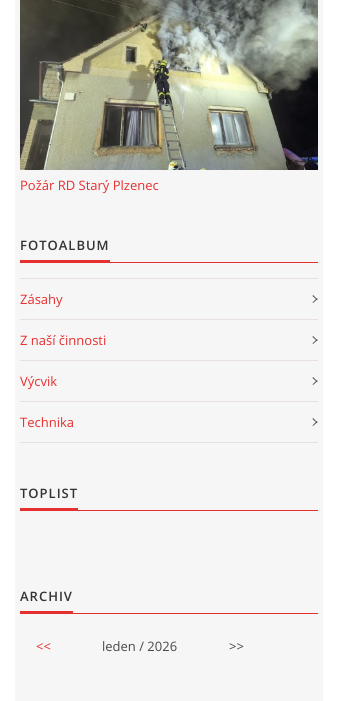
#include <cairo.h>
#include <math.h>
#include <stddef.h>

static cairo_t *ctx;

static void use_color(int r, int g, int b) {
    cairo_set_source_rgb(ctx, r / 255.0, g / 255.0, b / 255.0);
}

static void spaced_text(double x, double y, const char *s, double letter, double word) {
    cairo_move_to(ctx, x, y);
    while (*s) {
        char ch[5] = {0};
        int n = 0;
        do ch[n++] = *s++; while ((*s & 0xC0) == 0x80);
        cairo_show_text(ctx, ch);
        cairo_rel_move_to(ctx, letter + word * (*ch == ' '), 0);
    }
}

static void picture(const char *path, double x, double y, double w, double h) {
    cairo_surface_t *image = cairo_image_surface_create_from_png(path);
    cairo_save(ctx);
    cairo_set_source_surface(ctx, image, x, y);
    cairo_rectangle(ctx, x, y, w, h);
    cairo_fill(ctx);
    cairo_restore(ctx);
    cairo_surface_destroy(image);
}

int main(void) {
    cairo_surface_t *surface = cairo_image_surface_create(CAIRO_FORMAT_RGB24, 338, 701);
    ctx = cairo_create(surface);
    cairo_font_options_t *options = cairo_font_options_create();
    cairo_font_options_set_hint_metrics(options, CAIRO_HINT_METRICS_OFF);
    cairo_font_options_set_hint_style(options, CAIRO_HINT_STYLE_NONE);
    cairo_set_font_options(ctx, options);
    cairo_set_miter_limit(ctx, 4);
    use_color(255, 255, 255);
    cairo_paint(ctx);
    use_color(246, 246, 246);
    cairo_rectangle(ctx, 15, 0, 308, 701);
    cairo_fill(ctx);
    picture("img1.png", 20, 0, 298, 170);
    cairo_select_font_face(ctx, "Open Sans", CAIRO_FONT_SLANT_NORMAL, CAIRO_FONT_WEIGHT_NORMAL);
    cairo_set_font_size(ctx, 13);
    use_color(230, 47, 47);
    cairo_move_to(ctx, 20, 190);
    cairo_show_text(ctx, "Požár RD Starý Plzenec");
    cairo_select_font_face(ctx, "Open Sans SemiBold", CAIRO_FONT_SLANT_NORMAL, CAIRO_FONT_WEIGHT_NORMAL);
    use_color(51, 51, 51);
    spaced_text(20, 250, "FOTOALBUM", 1, 0);
    use_color(230, 47, 47);
    cairo_rectangle(ctx, 20, 260, 90, 2);
    cairo_fill(ctx);
    cairo_rectangle(ctx, 20, 262, 298, 1);
    cairo_fill(ctx);
    use_color(232, 223, 223);
    cairo_rectangle(ctx, 20, 278, 298, 1);
    cairo_fill(ctx);
    cairo_rectangle(ctx, 20, 319, 298, 1);
    cairo_fill(ctx);
    cairo_select_font_face(ctx, "Open Sans", CAIRO_FONT_SLANT_NORMAL, CAIRO_FONT_WEIGHT_NORMAL);
    use_color(230, 47, 47);
    cairo_move_to(ctx, 20, 304);
    cairo_show_text(ctx, "Zásahy");
    use_color(72, 72, 72);
    cairo_new_path(ctx);
    cairo_move_to(ctx, 313, 295);
    cairo_line_to(ctx, 317.5, 299.5);
    cairo_line_to(ctx, 317, 300);
    cairo_line_to(ctx, 312.5, 296);
    cairo_close_path(ctx);
    cairo_fill(ctx);
    cairo_new_path(ctx);
    cairo_move_to(ctx, 312.5, 302.5);
    cairo_line_to(ctx, 317, 298);
    cairo_line_to(ctx, 317.5, 299);
    cairo_line_to(ctx, 313, 303);
    cairo_close_path(ctx);
    cairo_fill(ctx);
    use_color(232, 223, 223);
    cairo_rectangle(ctx, 20, 360, 298, 1);
    cairo_fill(ctx);
    use_color(230, 47, 47);
    cairo_move_to(ctx, 20, 345);
    cairo_show_text(ctx, "Z naší činnosti");
    use_color(72, 72, 72);
    cairo_new_path(ctx);
    cairo_move_to(ctx, 313, 336);
    cairo_line_to(ctx, 317.5, 340.5);
    cairo_line_to(ctx, 317, 341);
    cairo_line_to(ctx, 312.5, 337);
    cairo_close_path(ctx);
    cairo_fill(ctx);
    cairo_new_path(ctx);
    cairo_move_to(ctx, 312.5, 343.5);
    cairo_line_to(ctx, 317, 339);
    cairo_line_to(ctx, 317.5, 340);
    cairo_line_to(ctx, 313, 344);
    cairo_close_path(ctx);
    cairo_fill(ctx);
    use_color(232, 223, 223);
    cairo_rectangle(ctx, 20, 401, 298, 1);
    cairo_fill(ctx);
    use_color(230, 47, 47);
    cairo_move_to(ctx, 20, 386);
    cairo_show_text(ctx, "Výcvik");
    use_color(72, 72, 72);
    cairo_new_path(ctx);
    cairo_move_to(ctx, 313, 377);
    cairo_line_to(ctx, 317.5, 381.5);
    cairo_line_to(ctx, 317, 382);
    cairo_line_to(ctx, 312.5, 378);
    cairo_close_path(ctx);
    cairo_fill(ctx);
    cairo_new_path(ctx);
    cairo_move_to(ctx, 312.5, 384.5);
    cairo_line_to(ctx, 317, 380);
    cairo_line_to(ctx, 317.5, 381);
    cairo_line_to(ctx, 313, 385);
    cairo_close_path(ctx);
    cairo_fill(ctx);
    use_color(232, 223, 223);
    cairo_rectangle(ctx, 20, 442, 298, 1);
    cairo_fill(ctx);
    use_color(230, 47, 47);
    cairo_move_to(ctx, 20, 427);
    cairo_show_text(ctx, "Technika");
    use_color(72, 72, 72);
    cairo_new_path(ctx);
    cairo_move_to(ctx, 313, 418);
    cairo_line_to(ctx, 317.5, 422.5);
    cairo_line_to(ctx, 317, 423);
    cairo_line_to(ctx, 312.5, 419);
    cairo_close_path(ctx);
    cairo_fill(ctx);
    cairo_new_path(ctx);
    cairo_move_to(ctx, 312.5, 425.5);
    cairo_line_to(ctx, 317, 421);
    cairo_line_to(ctx, 317.5, 422);
    cairo_line_to(ctx, 313, 426);
    cairo_close_path(ctx);
    cairo_fill(ctx);
    cairo_select_font_face(ctx, "Open Sans SemiBold", CAIRO_FONT_SLANT_NORMAL, CAIRO_FONT_WEIGHT_NORMAL);
    use_color(51, 51, 51);
    spaced_text(20, 498, "TOPLIST", 1, 0);
    use_color(230, 47, 47);
    cairo_rectangle(ctx, 20, 508, 58, 2);
    cairo_fill(ctx);
    cairo_rectangle(ctx, 20, 510, 298, 1);
    cairo_fill(ctx);
    use_color(51, 51, 51);
    spaced_text(20, 601, "ARCHIV", 1, 0);
    use_color(230, 47, 47);
    cairo_rectangle(ctx, 20, 611, 53, 2);
    cairo_fill(ctx);
    cairo_rectangle(ctx, 20, 613, 298, 1);
    cairo_fill(ctx);
    cairo_select_font_face(ctx, "Open Sans", CAIRO_FONT_SLANT_NORMAL, CAIRO_FONT_WEIGHT_NORMAL);
    cairo_move_to(ctx, 36, 651);
    cairo_show_text(ctx, "<<");
    use_color(72, 72, 72);
    cairo_move_to(ctx, 102, 651);
    cairo_show_text(ctx, "leden / 2026");
    cairo_move_to(ctx, 229, 651);
    cairo_show_text(ctx, ">>");
    cairo_surface_write_to_png(surface, "result.png");
    cairo_font_options_destroy(options);
    cairo_destroy(ctx);
    cairo_surface_destroy(surface);
    return 0;
}
